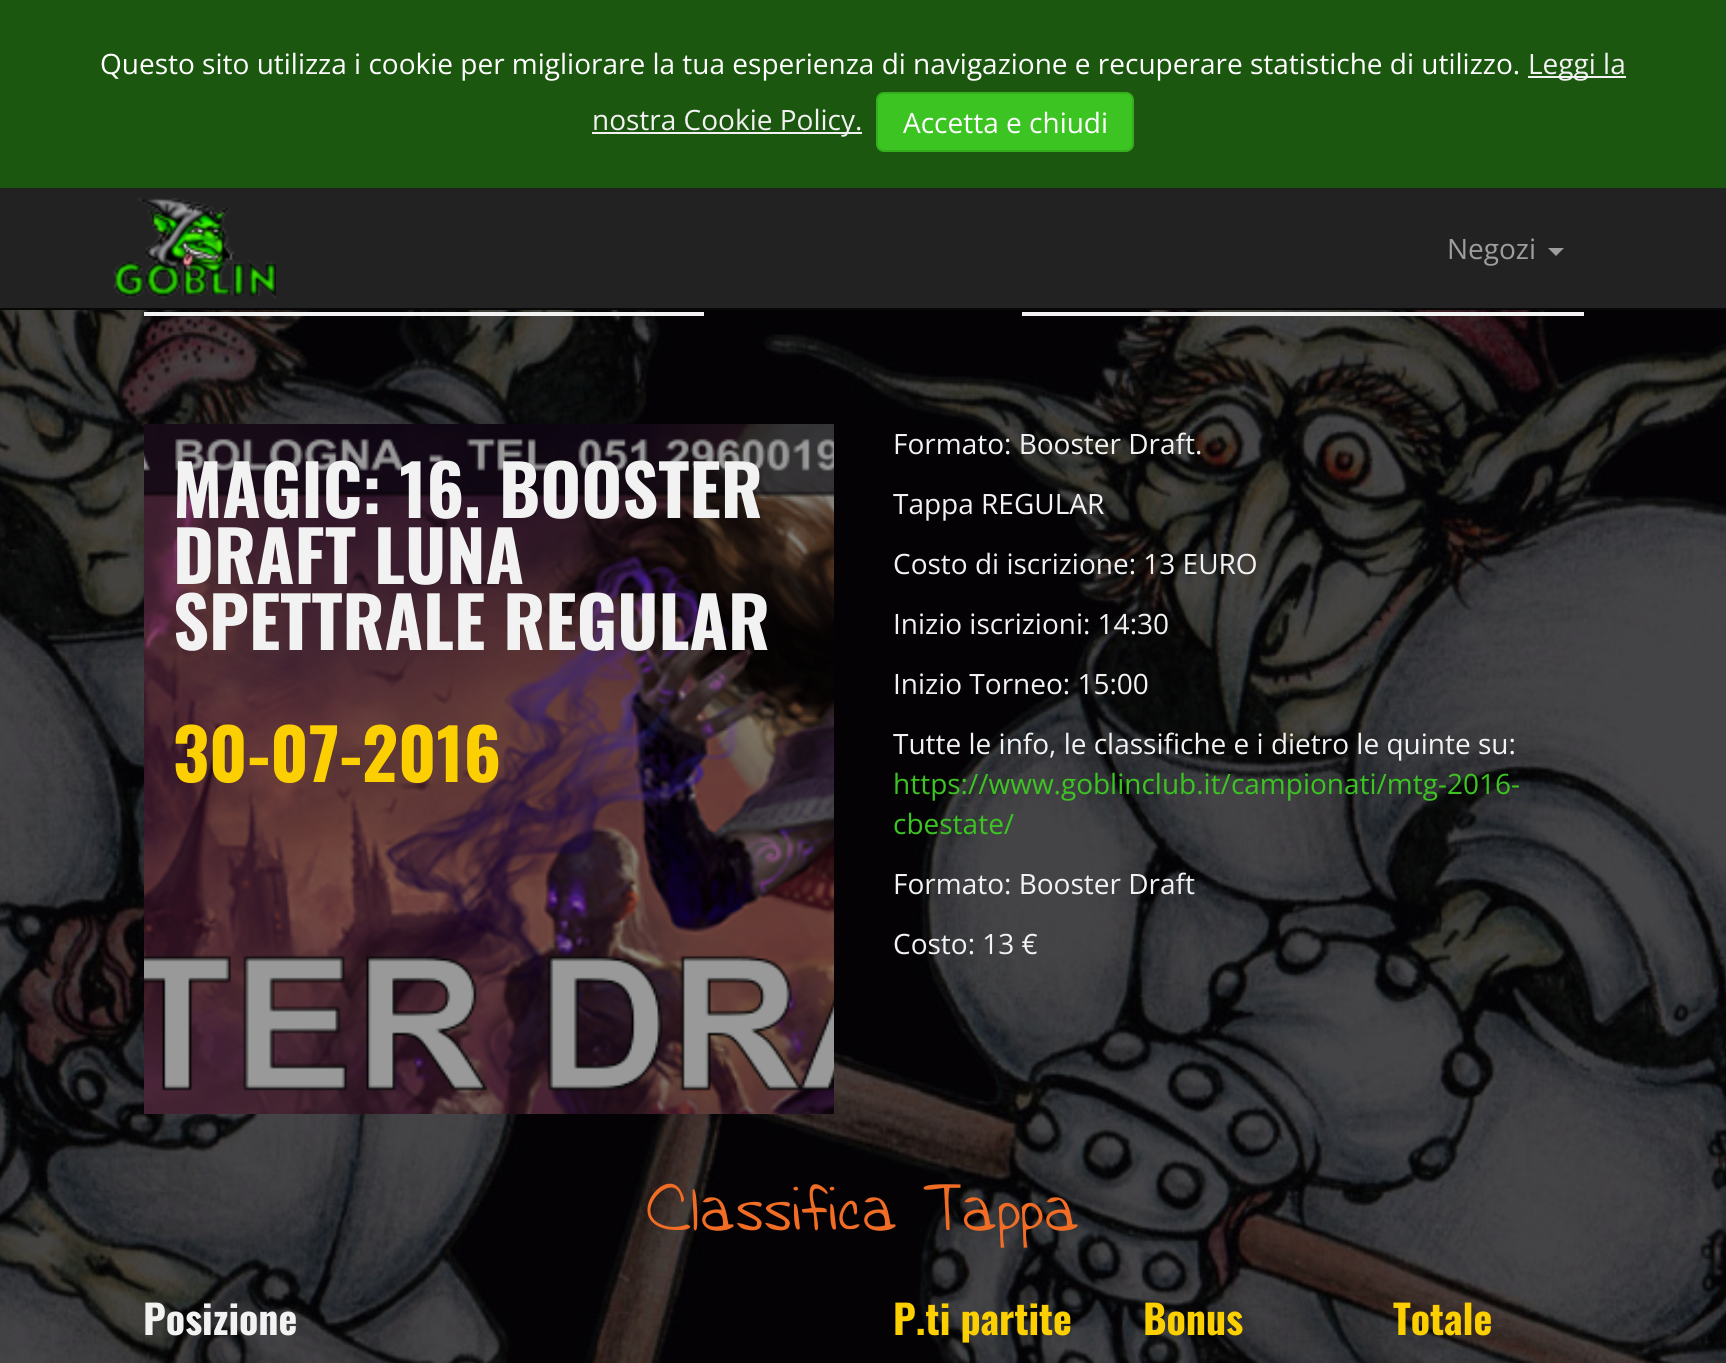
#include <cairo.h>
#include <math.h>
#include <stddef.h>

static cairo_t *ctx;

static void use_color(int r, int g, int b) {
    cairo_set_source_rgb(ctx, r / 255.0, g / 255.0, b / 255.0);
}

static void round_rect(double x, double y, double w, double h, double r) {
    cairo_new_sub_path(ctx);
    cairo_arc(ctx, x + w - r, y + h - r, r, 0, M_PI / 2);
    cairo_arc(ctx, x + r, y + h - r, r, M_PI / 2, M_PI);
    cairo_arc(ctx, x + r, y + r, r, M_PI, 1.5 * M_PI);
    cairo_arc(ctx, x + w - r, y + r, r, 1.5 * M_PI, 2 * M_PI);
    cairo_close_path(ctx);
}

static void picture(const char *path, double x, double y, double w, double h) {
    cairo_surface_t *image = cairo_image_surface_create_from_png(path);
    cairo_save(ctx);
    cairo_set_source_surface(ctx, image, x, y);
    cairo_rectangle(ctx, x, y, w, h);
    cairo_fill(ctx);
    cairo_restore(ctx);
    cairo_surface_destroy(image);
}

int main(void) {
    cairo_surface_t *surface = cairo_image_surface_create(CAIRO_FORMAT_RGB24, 1726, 1363);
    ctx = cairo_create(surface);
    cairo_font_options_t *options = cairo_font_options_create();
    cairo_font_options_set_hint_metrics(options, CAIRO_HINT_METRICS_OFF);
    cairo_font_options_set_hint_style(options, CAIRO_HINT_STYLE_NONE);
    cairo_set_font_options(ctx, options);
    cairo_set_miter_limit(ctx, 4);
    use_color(255, 255, 255);
    cairo_paint(ctx);
    use_color(34, 34, 34);
    cairo_rectangle(ctx, 0, 188, 1726, 120);
    cairo_fill(ctx);
    use_color(8, 8, 8);
    cairo_rectangle(ctx, 0, 308, 1726, 2);
    cairo_fill(ctx);
    use_color(27, 87, 15);
    cairo_rectangle(ctx, 0, 0, 1726, 188);
    cairo_fill(ctx);
    cairo_select_font_face(ctx, "Open Sans", CAIRO_FONT_SLANT_NORMAL, CAIRO_FONT_WEIGHT_NORMAL);
    cairo_set_font_size(ctx, 28);
    use_color(255, 255, 255);
    cairo_move_to(ctx, 100, 74);
    cairo_show_text(ctx, "Questo sito utilizza i cookie per migliorare la tua esperienza di navigazione e recuperare statistiche di utilizzo.");
    use_color(242, 242, 242);
    cairo_rectangle(ctx, 1528, 76, 98, 2);
    cairo_fill(ctx);
    cairo_move_to(ctx, 1528, 74);
    cairo_show_text(ctx, "Leggi la");
    cairo_rectangle(ctx, 592, 132, 270, 2);
    cairo_fill(ctx);
    cairo_move_to(ctx, 592, 130);
    cairo_show_text(ctx, "nostra Cookie Policy.");
    use_color(60, 196, 34);
    round_rect(877, 93, 256, 58, 7);
    cairo_fill_preserve(ctx);
    use_color(53, 174, 30);
    cairo_stroke(ctx);
    use_color(255, 255, 255);
    cairo_move_to(ctx, 903, 133);
    cairo_show_text(ctx, "Accetta e chiudi");
    picture("img1.png", 113, 198, 163, 101);
    use_color(157, 157, 157);
    cairo_move_to(ctx, 1447, 259);
    cairo_show_text(ctx, "Negozi");
    cairo_new_path(ctx);
    cairo_move_to(ctx, 1548, 248);
    cairo_line_to(ctx, 1564, 248);
    cairo_line_to(ctx, 1556, 256);
    cairo_close_path(ctx);
    cairo_fill(ctx);
    picture("img2.png", 0, 310, 1726, 1053);
    use_color(242, 242, 242);
    cairo_rectangle(ctx, 144, 312, 560, 4);
    cairo_fill(ctx);
    cairo_rectangle(ctx, 1022, 312, 562, 4);
    cairo_fill(ctx);
    picture("img3.png", 144, 424, 690, 690);
    cairo_select_font_face(ctx, "Oswald", CAIRO_FONT_SLANT_NORMAL, CAIRO_FONT_WEIGHT_BOLD);
    cairo_set_font_size(ctx, 70);
    cairo_move_to(ctx, 173, 518);
    cairo_show_text(ctx, "MAGIC: 16. BOOSTER");
    cairo_move_to(ctx, 173, 584);
    cairo_show_text(ctx, "DRAFT LUNA");
    cairo_move_to(ctx, 173, 650);
    cairo_show_text(ctx, "SPETTRALE REGULAR");
    use_color(252, 208, 0);
    cairo_move_to(ctx, 173, 782);
    cairo_show_text(ctx, "30-07-2016");
    cairo_select_font_face(ctx, "Open Sans", CAIRO_FONT_SLANT_NORMAL, CAIRO_FONT_WEIGHT_NORMAL);
    cairo_set_font_size(ctx, 28);
    use_color(242, 242, 242);
    cairo_move_to(ctx, 893, 454);
    cairo_show_text(ctx, "Formato: Booster Draft.");
    cairo_move_to(ctx, 893, 514);
    cairo_show_text(ctx, "Tappa REGULAR");
    cairo_move_to(ctx, 893, 574);
    cairo_show_text(ctx, "Costo di iscrizione: 13 EURO");
    cairo_move_to(ctx, 893, 634);
    cairo_show_text(ctx, "Inizio iscrizioni: 14:30");
    cairo_move_to(ctx, 893, 694);
    cairo_show_text(ctx, "Inizio Torneo: 15:00");
    cairo_move_to(ctx, 893, 754);
    cairo_show_text(ctx, "Tutte le info, le classifiche e i dietro le quinte su:");
    use_color(60, 196, 34);
    cairo_move_to(ctx, 893, 794);
    cairo_show_text(ctx, "https://www.goblinclub.it/campionati/mtg-2016-");
    cairo_move_to(ctx, 893, 834);
    cairo_show_text(ctx, "cbestate/");
    use_color(242, 242, 242);
    cairo_move_to(ctx, 893, 894);
    cairo_show_text(ctx, "Formato: Booster Draft");
    cairo_move_to(ctx, 893, 954);
    cairo_show_text(ctx, "Costo: 13 €");
    cairo_select_font_face(ctx, "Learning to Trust", CAIRO_FONT_SLANT_NORMAL, CAIRO_FONT_WEIGHT_NORMAL);
    cairo_set_font_size(ctx, 50);
    use_color(241, 108, 36);
    cairo_move_to(ctx, 646, 1230);
    cairo_show_text(ctx, "Classifica Tappa");
    cairo_select_font_face(ctx, "Oswald", CAIRO_FONT_SLANT_NORMAL, CAIRO_FONT_WEIGHT_BOLD);
    cairo_set_font_size(ctx, 40);
    use_color(242, 242, 242);
    cairo_move_to(ctx, 143, 1335);
    cairo_show_text(ctx, "Posizione");
    use_color(252, 208, 0);
    cairo_move_to(ctx, 893, 1335);
    cairo_show_text(ctx, "P.ti partite");
    cairo_move_to(ctx, 1143, 1335);
    cairo_show_text(ctx, "Bonus");
    cairo_move_to(ctx, 1393, 1335);
    cairo_show_text(ctx, "Totale");
    cairo_surface_write_to_png(surface, "result.png");
    cairo_font_options_destroy(options);
    cairo_destroy(ctx);
    cairo_surface_destroy(surface);
    return 0;
}
